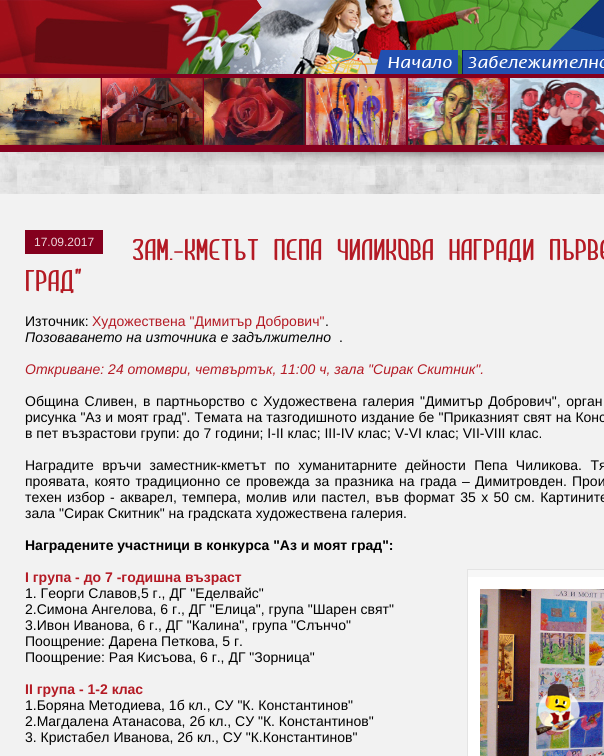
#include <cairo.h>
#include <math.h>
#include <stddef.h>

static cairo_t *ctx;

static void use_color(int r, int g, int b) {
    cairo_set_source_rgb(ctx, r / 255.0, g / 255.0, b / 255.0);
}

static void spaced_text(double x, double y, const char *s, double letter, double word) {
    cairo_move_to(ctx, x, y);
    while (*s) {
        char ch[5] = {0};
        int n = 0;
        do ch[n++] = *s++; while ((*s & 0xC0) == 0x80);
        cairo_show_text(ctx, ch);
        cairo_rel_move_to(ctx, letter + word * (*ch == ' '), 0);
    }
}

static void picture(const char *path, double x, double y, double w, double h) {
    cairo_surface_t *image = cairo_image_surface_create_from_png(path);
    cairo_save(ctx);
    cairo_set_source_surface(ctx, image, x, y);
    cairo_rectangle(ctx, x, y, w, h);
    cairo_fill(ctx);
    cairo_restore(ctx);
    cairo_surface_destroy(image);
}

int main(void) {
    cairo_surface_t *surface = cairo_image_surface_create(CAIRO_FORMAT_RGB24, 604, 756);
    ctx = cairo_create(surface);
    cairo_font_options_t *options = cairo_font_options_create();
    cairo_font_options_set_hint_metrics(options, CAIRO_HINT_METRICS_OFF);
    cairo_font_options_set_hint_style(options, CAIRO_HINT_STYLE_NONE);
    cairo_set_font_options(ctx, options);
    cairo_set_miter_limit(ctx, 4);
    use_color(255, 255, 255);
    cairo_paint(ctx);
    picture("img1.png", 0, 0, 604, 74);
    picture("img2.png", 374, 50, 7, 24);
    picture("img3.png", 381, 50, 77, 24);
    picture("img4.png", 462, 50, 142, 24);
    use_color(132, 0, 30);
    cairo_rectangle(ctx, 0, 74, 604, 4);
    cairo_fill(ctx);
    cairo_rectangle(ctx, 0, 78, 604, 74);
    cairo_fill(ctx);
    picture("img5.png", 0, 78, 101, 67);
    picture("img6.png", 102, 78, 101, 67);
    picture("img7.png", 204, 78, 101, 67);
    picture("img8.png", 306, 78, 100, 67);
    picture("img9.png", 408, 78, 100, 67);
    picture("img10.png", 510, 78, 94, 67);
    picture("img11.png", 0, 152, 604, 42);
    picture("img12.png", 9, 152, 595, 13);
    use_color(242, 242, 242);
    cairo_rectangle(ctx, 0, 194, 604, 562);
    cairo_fill(ctx);
    use_color(132, 0, 30);
    cairo_rectangle(ctx, 25, 230, 78, 24);
    cairo_fill(ctx);
    cairo_select_font_face(ctx, "Liberation Sans", CAIRO_FONT_SLANT_NORMAL, CAIRO_FONT_WEIGHT_NORMAL);
    cairo_set_font_size(ctx, 12);
    use_color(236, 215, 219);
    cairo_move_to(ctx, 34, 246);
    cairo_show_text(ctx, "17.09.2017");
    cairo_select_font_face(ctx, "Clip", CAIRO_FONT_SLANT_NORMAL, CAIRO_FONT_WEIGHT_NORMAL);
    cairo_set_font_size(ctx, 30);
    use_color(180, 26, 36);
    spaced_text(132, 260, "Зам.-кметът Пепа Чиликова награди първе", 0, 5.5);
    cairo_move_to(ctx, 25, 291);
    cairo_show_text(ctx, "град\"");
    cairo_select_font_face(ctx, "Liberation Sans", CAIRO_FONT_SLANT_NORMAL, CAIRO_FONT_WEIGHT_NORMAL);
    cairo_set_font_size(ctx, 14);
    use_color(0, 0, 0);
    cairo_move_to(ctx, 25, 326);
    cairo_show_text(ctx, "Източник:");
    use_color(180, 26, 36);
    cairo_move_to(ctx, 92, 326);
    cairo_show_text(ctx, "Художествена \"Димитър Добрович\"");
    use_color(0, 0, 0);
    cairo_move_to(ctx, 325, 326);
    cairo_show_text(ctx, ".");
    cairo_select_font_face(ctx, "Liberation Sans", CAIRO_FONT_SLANT_ITALIC, CAIRO_FONT_WEIGHT_NORMAL);
    cairo_move_to(ctx, 25, 342);
    cairo_show_text(ctx, "Позоваването на източника е задължително");
    cairo_select_font_face(ctx, "Liberation Sans", CAIRO_FONT_SLANT_NORMAL, CAIRO_FONT_WEIGHT_NORMAL);
    cairo_move_to(ctx, 339, 342);
    cairo_show_text(ctx, ".");
    cairo_select_font_face(ctx, "Liberation Sans", CAIRO_FONT_SLANT_ITALIC, CAIRO_FONT_WEIGHT_NORMAL);
    use_color(180, 26, 36);
    cairo_move_to(ctx, 25, 374);
    cairo_show_text(ctx, "Откриване: 24 отомври, четвъртък, 11:00 ч, зала \"Сирак Скитник\".");
    cairo_select_font_face(ctx, "Liberation Sans", CAIRO_FONT_SLANT_NORMAL, CAIRO_FONT_WEIGHT_NORMAL);
    use_color(0, 0, 0);
    spaced_text(25, 406, "Община Сливен, в партньорство с Художествена галерия \"Димитър Добрович\", орган", 0, 1.75);
    spaced_text(25, 422, "рисунка \"Аз и моят град\". Темата на тазгодишното издание бе \"Приказният свят на Конс", 0, 0.25);
    cairo_move_to(ctx, 25, 438);
    cairo_show_text(ctx, "в пет възрастови групи: до 7 години; І-ІІ клас; ІІІ-ІV клас; V-VІ клас; VІІ-VІІІ клас.");
    spaced_text(25, 470, "Наградите връчи заместник-кметът по хуманитарните дейности Пепа Чиликова. Тя", 0, 4.5);
    spaced_text(25, 486, "проявата, която традиционно се провежда за празника на града – Димитровден.", 0, 1.5);
    spaced_text(572, 486, "Прои", 0, 1.5);
    spaced_text(25, 502, "техен избор - акварел, темпера, молив или пастел, във формат 35 х 50 см. Картините", 0, 1.4);
    cairo_move_to(ctx, 25, 518);
    cairo_show_text(ctx, "зала \"Сирак Скитник\" на градската художествена галерия.");
    cairo_select_font_face(ctx, "Liberation Sans", CAIRO_FONT_SLANT_NORMAL, CAIRO_FONT_WEIGHT_BOLD);
    cairo_move_to(ctx, 25, 550);
    cairo_show_text(ctx, "Наградените участници в конкурса \"Аз и моят град\":");
    use_color(180, 26, 36);
    cairo_move_to(ctx, 25, 582);
    cairo_show_text(ctx, "I група - до 7 -годишна възраст");
    use_color(228, 228, 228);
    cairo_rectangle(ctx, 467, 569, 137, 187);
    cairo_fill(ctx);
    use_color(247, 247, 247);
    cairo_rectangle(ctx, 468, 570, 136, 7);
    cairo_fill(ctx);
    use_color(255, 255, 255);
    cairo_rectangle(ctx, 468, 577, 136, 179);
    cairo_fill(ctx);
    picture("img13.png", 480, 589, 124, 167);
    cairo_select_font_face(ctx, "Liberation Sans", CAIRO_FONT_SLANT_NORMAL, CAIRO_FONT_WEIGHT_NORMAL);
    use_color(0, 0, 0);
    cairo_move_to(ctx, 25, 598);
    cairo_show_text(ctx, "1. Георги Славов,5 г., ДГ \"Еделвайс\"");
    cairo_move_to(ctx, 25, 614);
    cairo_show_text(ctx, "2.Симона Ангелова, 6 г., ДГ \"Елица\", група \"Шарен свят\"");
    cairo_move_to(ctx, 25, 630);
    cairo_show_text(ctx, "3.Ивон Иванова, 6 г., ДГ \"Калина\", група \"Слънчо\"");
    cairo_move_to(ctx, 25, 646);
    cairo_show_text(ctx, "Поощрение: Дарена Петкова, 5 г.");
    cairo_move_to(ctx, 25, 662);
    cairo_show_text(ctx, "Поощрение: Рая Кисъова, 6 г., ДГ \"Зорница\"");
    cairo_select_font_face(ctx, "Liberation Sans", CAIRO_FONT_SLANT_NORMAL, CAIRO_FONT_WEIGHT_BOLD);
    use_color(180, 26, 36);
    cairo_move_to(ctx, 25, 694);
    cairo_show_text(ctx, "II група - 1-2 клас");
    cairo_select_font_face(ctx, "Liberation Sans", CAIRO_FONT_SLANT_NORMAL, CAIRO_FONT_WEIGHT_NORMAL);
    use_color(0, 0, 0);
    cairo_move_to(ctx, 25, 710);
    cairo_show_text(ctx, "1.Боряна Методиева, 1б кл., СУ \"К. Константинов\"");
    cairo_move_to(ctx, 25, 726);
    cairo_show_text(ctx, "2.Магдалена Атанасова, 2б кл., СУ \"К. Константинов\"");
    cairo_move_to(ctx, 25, 742);
    cairo_show_text(ctx, "3. Кристабел Иванова, 2б кл., СУ \"К.Константинов\"");
    picture("img14.png", 535, 684, 51, 52);
    cairo_surface_write_to_png(surface, "result.png");
    cairo_font_options_destroy(options);
    cairo_destroy(ctx);
    cairo_surface_destroy(surface);
    return 0;
}
